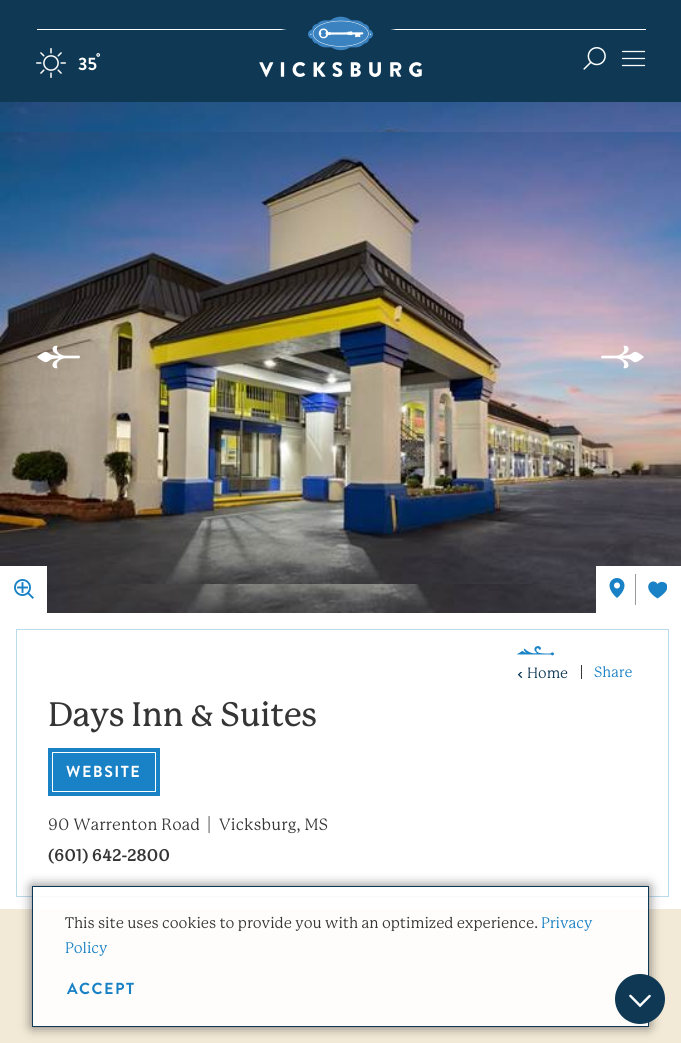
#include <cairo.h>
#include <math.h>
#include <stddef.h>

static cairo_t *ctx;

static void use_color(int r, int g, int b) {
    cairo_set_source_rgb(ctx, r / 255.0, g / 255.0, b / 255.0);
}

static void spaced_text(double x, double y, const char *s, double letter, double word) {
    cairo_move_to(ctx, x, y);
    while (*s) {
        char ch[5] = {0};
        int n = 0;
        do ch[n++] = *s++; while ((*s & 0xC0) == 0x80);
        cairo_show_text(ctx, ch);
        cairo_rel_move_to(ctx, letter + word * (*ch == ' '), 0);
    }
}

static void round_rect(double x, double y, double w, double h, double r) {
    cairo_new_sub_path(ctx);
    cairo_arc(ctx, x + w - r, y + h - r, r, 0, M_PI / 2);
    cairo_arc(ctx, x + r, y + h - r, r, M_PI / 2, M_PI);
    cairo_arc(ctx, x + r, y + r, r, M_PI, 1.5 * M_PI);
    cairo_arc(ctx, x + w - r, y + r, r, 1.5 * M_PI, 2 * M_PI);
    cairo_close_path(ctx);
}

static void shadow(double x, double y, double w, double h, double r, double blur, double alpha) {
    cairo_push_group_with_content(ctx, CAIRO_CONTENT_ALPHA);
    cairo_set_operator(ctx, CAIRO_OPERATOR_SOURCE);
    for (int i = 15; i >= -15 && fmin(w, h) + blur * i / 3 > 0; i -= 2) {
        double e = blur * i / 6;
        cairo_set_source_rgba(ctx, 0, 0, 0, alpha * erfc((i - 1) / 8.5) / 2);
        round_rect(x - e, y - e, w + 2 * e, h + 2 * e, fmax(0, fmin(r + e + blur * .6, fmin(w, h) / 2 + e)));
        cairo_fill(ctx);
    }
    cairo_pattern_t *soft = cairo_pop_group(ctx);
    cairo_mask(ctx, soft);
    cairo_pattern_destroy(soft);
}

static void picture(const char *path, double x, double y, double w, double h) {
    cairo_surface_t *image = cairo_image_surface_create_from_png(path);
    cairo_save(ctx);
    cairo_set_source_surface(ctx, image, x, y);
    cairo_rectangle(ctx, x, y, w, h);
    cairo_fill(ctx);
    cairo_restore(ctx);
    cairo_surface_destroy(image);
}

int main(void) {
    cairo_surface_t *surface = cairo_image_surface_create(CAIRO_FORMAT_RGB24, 681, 1043);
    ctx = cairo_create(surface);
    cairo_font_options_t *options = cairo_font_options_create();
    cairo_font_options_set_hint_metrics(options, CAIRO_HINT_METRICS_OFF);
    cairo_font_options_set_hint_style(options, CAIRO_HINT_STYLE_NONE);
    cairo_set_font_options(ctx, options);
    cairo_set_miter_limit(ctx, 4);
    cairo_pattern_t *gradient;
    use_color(255, 255, 255);
    cairo_paint(ctx);
    use_color(14, 56, 84);
    cairo_rectangle(ctx, 0, 0, 681, 102);
    cairo_fill(ctx);
    gradient = cairo_pattern_create_linear(37, 30, 646, 29);
    cairo_pattern_add_color_stop_rgba(gradient, 0, 1, 1, 1, 1);
    cairo_pattern_add_color_stop_rgba(gradient, 0.4, 1, 1, 1, 1);
    cairo_pattern_add_color_stop_rgba(gradient, 0.41, 0.055, 0.22, 0.329, 1);
    cairo_pattern_add_color_stop_rgba(gradient, 0.58, 0.055, 0.22, 0.329, 1);
    cairo_pattern_add_color_stop_rgba(gradient, 0.59, 1, 1, 1, 1);
    cairo_pattern_add_color_stop_rgba(gradient, 1, 1, 1, 1, 1);
    cairo_set_source(ctx, gradient);
    cairo_pattern_destroy(gradient);
    cairo_rectangle(ctx, 37, 29, 609, 1);
    cairo_fill(ctx);
    picture("img1.png", 259, 16, 163, 61);
    picture("img2.png", 36, 48, 30, 30);
    cairo_select_font_face(ctx, "Brandon Grotesque", CAIRO_FONT_SLANT_NORMAL, CAIRO_FONT_WEIGHT_BOLD);
    cairo_set_font_size(ctx, 14);
    use_color(255, 255, 255);
    cairo_move_to(ctx, 96, 63);
    cairo_show_text(ctx, "°");
    cairo_set_font_size(ctx, 18);
    cairo_move_to(ctx, 78, 70);
    cairo_show_text(ctx, "35");
    picture("img3.png", 583, 47, 23, 23);
    cairo_new_path(ctx);
    cairo_move_to(ctx, 644.5, 51.5);
    cairo_line_to(ctx, 622.5, 51.5);
    cairo_move_to(ctx, 644.5, 58.5);
    cairo_line_to(ctx, 622.5, 58.5);
    cairo_move_to(ctx, 644.5, 65.5);
    cairo_line_to(ctx, 622.5, 65.5);
    cairo_set_line_width(ctx, 1.3);
    cairo_set_line_cap(ctx, CAIRO_LINE_CAP_ROUND);
    cairo_stroke(ctx);
    picture("img4.png", 0, 102, 681, 511);
    picture("img5.png", 0, 132, 681, 452);
    cairo_rectangle(ctx, 0, 566, 47, 47);
    cairo_fill(ctx);
    picture("img6.png", 14, 579, 20, 20);
    picture("img7.png", 37, 345, 43, 24);
    picture("img8.png", 601, 345, 43, 24);
    cairo_rectangle(ctx, 596, 566, 85, 47);
    cairo_fill(ctx);
    use_color(154, 154, 154);
    cairo_rectangle(ctx, 635, 574, 1, 31);
    cairo_fill(ctx);
    picture("img9.png", 609, 578, 16, 20);
    cairo_save(ctx);
    cairo_rectangle(ctx, 648, 581, 19, 18);
    cairo_clip(ctx);
    use_color(25, 129, 197);
    cairo_new_path(ctx);
    cairo_move_to(ctx, 667.5, 587);
    cairo_curve_to(ctx, 667.5, 582, 660.5, 580, 657.5, 584);
    cairo_curve_to(ctx, 653, 576.5, 639, 587, 657.5, 598.5);
    cairo_curve_to(ctx, 657.5, 598.5, 667.5, 592.5, 667.5, 587);
    cairo_fill(ctx);
    cairo_restore(ctx);
    use_color(186, 218, 238);
    cairo_rectangle(ctx, 16, 629, 653, 268);
    cairo_fill(ctx);
    use_color(255, 255, 255);
    cairo_rectangle(ctx, 17, 630, 651, 266);
    cairo_fill(ctx);
    picture("img10.png", 517, 646, 37, 10);
    picture("img11.png", 517, 672, 6, 6);
    cairo_select_font_face(ctx, "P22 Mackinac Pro", CAIRO_FONT_SLANT_NORMAL, CAIRO_FONT_WEIGHT_NORMAL);
    cairo_set_font_size(ctx, 14.5);
    use_color(14, 56, 84);
    cairo_move_to(ctx, 527, 678);
    cairo_show_text(ctx, "Home");
    use_color(53, 53, 53);
    cairo_rectangle(ctx, 581, 665, 1, 14);
    cairo_fill(ctx);
    use_color(25, 129, 197);
    cairo_move_to(ctx, 594, 677);
    cairo_show_text(ctx, "Share");
    cairo_select_font_face(ctx, "P22 Mackinac Pro Medium", CAIRO_FONT_SLANT_NORMAL, CAIRO_FONT_WEIGHT_NORMAL);
    cairo_set_font_size(ctx, 33.25);
    use_color(53, 53, 53);
    spaced_text(48, 726, "Days Inn & Suites", -0.3, 0);
    use_color(25, 129, 197);
    cairo_rectangle(ctx, 48, 748, 112, 48);
    cairo_fill(ctx);
    cairo_rectangle(ctx, 52.5, 752.5, 103, 39);
    use_color(255, 255, 255);
    cairo_set_line_width(ctx, 1);
    cairo_set_line_cap(ctx, CAIRO_LINE_CAP_BUTT);
    cairo_stroke(ctx);
    cairo_select_font_face(ctx, "Brandon Grotesque", CAIRO_FONT_SLANT_NORMAL, CAIRO_FONT_WEIGHT_BOLD);
    cairo_set_font_size(ctx, 16);
    spaced_text(66, 777, "WEBSITE", 1.5, 0);
    cairo_select_font_face(ctx, "P22 Mackinac Pro", CAIRO_FONT_SLANT_NORMAL, CAIRO_FONT_WEIGHT_NORMAL);
    use_color(53, 53, 53);
    spaced_text(48, 830, "90 Warrenton Road", 0.2, 0);
    spaced_text(207, 830, "|", 0.2, 0);
    spaced_text(219, 830, "Vicksburg, MS", 0.2, 0);
    cairo_select_font_face(ctx, "P22 Mackinac Pro", CAIRO_FONT_SLANT_NORMAL, CAIRO_FONT_WEIGHT_BOLD);
    spaced_text(48, 861, "(601) 642-2800", 0.2, 0);
    use_color(242, 233, 214);
    cairo_rectangle(ctx, 0, 909, 681, 134);
    cairo_fill(ctx);
    cairo_save(ctx);
    cairo_set_fill_rule(ctx, CAIRO_FILL_RULE_EVEN_ODD);
    cairo_new_path(ctx);
    cairo_move_to(ctx, 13, 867);
    cairo_line_to(ctx, 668, 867);
    cairo_line_to(ctx, 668, 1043);
    cairo_line_to(ctx, 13, 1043);
    cairo_close_path(ctx);
    cairo_move_to(ctx, 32, 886);
    cairo_line_to(ctx, 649, 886);
    cairo_line_to(ctx, 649, 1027);
    cairo_line_to(ctx, 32, 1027);
    cairo_close_path(ctx);
    cairo_clip(ctx);
    use_color(53, 53, 53);
    shadow(32, 886, 617, 141, 0, 6, 0.67);
    cairo_restore(ctx);
    cairo_set_source_rgba(ctx, 1, 1, 1, 0.9);
    cairo_rectangle(ctx, 33, 896, 615, 130);
    cairo_fill(ctx);
    cairo_rectangle(ctx, 32.5, 886.5, 616, 140);
    use_color(14, 56, 84);
    cairo_stroke(ctx);
    cairo_select_font_face(ctx, "P22 Mackinac Pro", CAIRO_FONT_SLANT_NORMAL, CAIRO_FONT_WEIGHT_NORMAL);
    cairo_set_font_size(ctx, 15);
    use_color(53, 53, 53);
    cairo_move_to(ctx, 65, 928);
    cairo_show_text(ctx, "This site uses cookies to provide you with an optimized experience.");
    use_color(25, 129, 197);
    cairo_move_to(ctx, 541, 928);
    cairo_show_text(ctx, "Privacy");
    cairo_move_to(ctx, 65, 953);
    cairo_show_text(ctx, "Policy");
    cairo_select_font_face(ctx, "Brandon Grotesque", CAIRO_FONT_SLANT_NORMAL, CAIRO_FONT_WEIGHT_BOLD);
    cairo_set_font_size(ctx, 16);
    spaced_text(67, 994, "ACCEPT", 1.5, 0);
    use_color(14, 56, 84);
    cairo_new_path(ctx);
    cairo_arc(ctx, 640, 999, 25, 0, 2 * M_PI);
    cairo_fill(ctx);
    picture("img12.png", 629, 994, 22, 14);
    cairo_surface_write_to_png(surface, "result.png");
    cairo_font_options_destroy(options);
    cairo_destroy(ctx);
    cairo_surface_destroy(surface);
    return 0;
}
